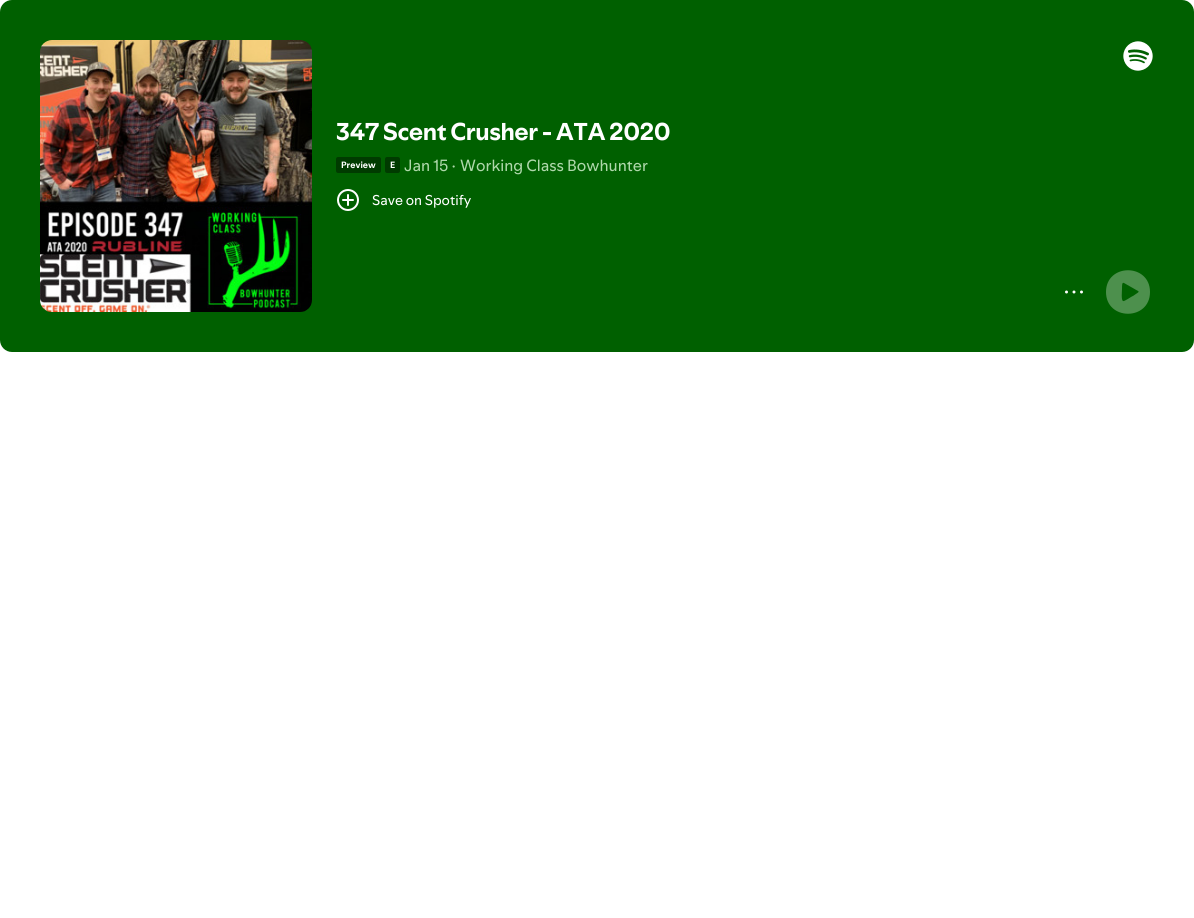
#include <cairo.h>
#include <math.h>
#include <stddef.h>

static cairo_t *ctx;

static void use_color(int r, int g, int b) {
    cairo_set_source_rgb(ctx, r / 255.0, g / 255.0, b / 255.0);
}

static void round_rect(double x, double y, double w, double h, double r) {
    cairo_new_sub_path(ctx);
    cairo_arc(ctx, x + w - r, y + h - r, r, 0, M_PI / 2);
    cairo_arc(ctx, x + r, y + h - r, r, M_PI / 2, M_PI);
    cairo_arc(ctx, x + r, y + r, r, M_PI, 1.5 * M_PI);
    cairo_arc(ctx, x + w - r, y + r, r, 1.5 * M_PI, 2 * M_PI);
    cairo_close_path(ctx);
}

static void picture(const char *path, double x, double y, double w, double h) {
    cairo_surface_t *image = cairo_image_surface_create_from_png(path);
    cairo_save(ctx);
    cairo_set_source_surface(ctx, image, x, y);
    cairo_rectangle(ctx, x, y, w, h);
    cairo_fill(ctx);
    cairo_restore(ctx);
    cairo_surface_destroy(image);
}

int main(void) {
    cairo_surface_t *surface = cairo_image_surface_create(CAIRO_FORMAT_RGB24, 1194, 918);
    ctx = cairo_create(surface);
    cairo_font_options_t *options = cairo_font_options_create();
    cairo_font_options_set_hint_metrics(options, CAIRO_HINT_METRICS_OFF);
    cairo_font_options_set_hint_style(options, CAIRO_HINT_STYLE_NONE);
    cairo_set_font_options(ctx, options);
    cairo_set_miter_limit(ctx, 4);
    use_color(255, 255, 255);
    cairo_paint(ctx);
    use_color(0, 96, 0);
    round_rect(0, 0, 1194, 352, 12);
    cairo_fill(ctx);
    picture("img1.png", 40, 40, 272, 272);
    picture("img2.png", 1123, 41, 30, 30);
    cairo_select_font_face(ctx, "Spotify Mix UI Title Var", CAIRO_FONT_SLANT_NORMAL, CAIRO_FONT_WEIGHT_BOLD);
    cairo_set_font_size(ctx, 24);
    use_color(255, 255, 255);
    cairo_move_to(ctx, 336, 140);
    cairo_show_text(ctx, "347 Scent Crusher - ATA 2020");
    use_color(0, 59, 0);
    round_rect(336, 157, 45, 16, 2);
    cairo_fill(ctx);
    cairo_select_font_face(ctx, "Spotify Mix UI", CAIRO_FONT_SLANT_NORMAL, CAIRO_FONT_WEIGHT_BOLD);
    cairo_set_font_size(ctx, 9);
    use_color(255, 255, 255);
    cairo_move_to(ctx, 341, 168);
    cairo_show_text(ctx, "Preview");
    use_color(0, 59, 0);
    round_rect(385, 157, 15, 16, 2);
    cairo_fill(ctx);
    use_color(255, 255, 255);
    cairo_move_to(ctx, 390, 168);
    cairo_show_text(ctx, "E");
    cairo_select_font_face(ctx, "Spotify Mix UI", CAIRO_FONT_SLANT_NORMAL, CAIRO_FONT_WEIGHT_NORMAL);
    cairo_set_font_size(ctx, 16);
    use_color(175, 216, 171);
    cairo_move_to(ctx, 404, 171);
    cairo_show_text(ctx, "Jan 15");
    cairo_select_font_face(ctx, "Spotify Mix UI", CAIRO_FONT_SLANT_NORMAL, CAIRO_FONT_WEIGHT_BOLD);
    cairo_set_font_size(ctx, 13);
    cairo_move_to(ctx, 452, 170);
    cairo_show_text(ctx, "·");
    cairo_select_font_face(ctx, "Spotify Mix UI", CAIRO_FONT_SLANT_NORMAL, CAIRO_FONT_WEIGHT_NORMAL);
    cairo_set_font_size(ctx, 16);
    cairo_move_to(ctx, 460, 171);
    cairo_show_text(ctx, "Working Class Bowhunter");
    picture("img3.png", 337, 189, 22, 22);
    cairo_set_font_size(ctx, 14);
    use_color(255, 255, 255);
    cairo_move_to(ctx, 372, 205);
    cairo_show_text(ctx, "Save on Spotify");
    picture("img4.png", 1065, 290, 18, 4);
    use_color(77, 144, 77);
    cairo_new_path(ctx);
    cairo_move_to(ctx, 1106, 292);
    cairo_curve_to(ctx, 1106, 263, 1150, 263, 1150, 292);
    cairo_curve_to(ctx, 1150, 321, 1106, 321, 1106, 292);
    cairo_move_to(ctx, 1124, 283);
    cairo_curve_to(ctx, 1122, 282, 1122, 285, 1122, 289);
    cairo_curve_to(ctx, 1122, 291, 1121, 300, 1123, 301);
    cairo_curve_to(ctx, 1124, 302, 1132, 296, 1133, 296);
    cairo_curve_to(ctx, 1137, 293, 1140, 292, 1138, 291);
    cairo_close_path(ctx);
    cairo_fill(ctx);
    cairo_surface_write_to_png(surface, "result.png");
    cairo_font_options_destroy(options);
    cairo_destroy(ctx);
    cairo_surface_destroy(surface);
    return 0;
}
